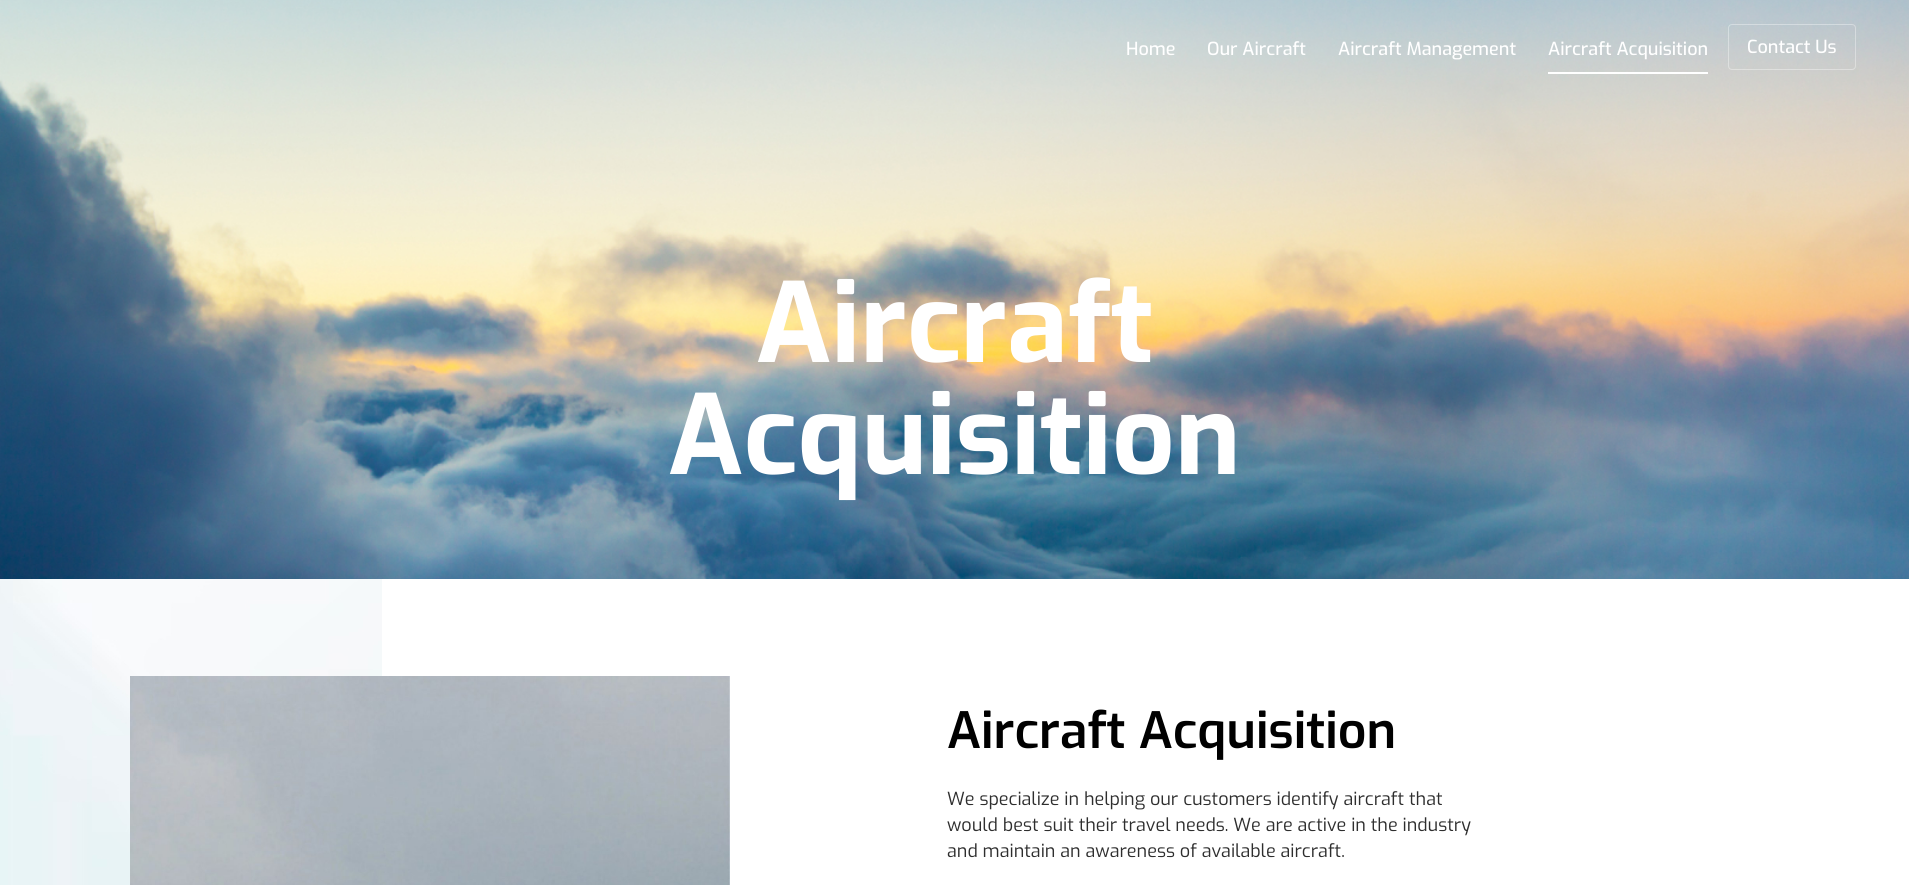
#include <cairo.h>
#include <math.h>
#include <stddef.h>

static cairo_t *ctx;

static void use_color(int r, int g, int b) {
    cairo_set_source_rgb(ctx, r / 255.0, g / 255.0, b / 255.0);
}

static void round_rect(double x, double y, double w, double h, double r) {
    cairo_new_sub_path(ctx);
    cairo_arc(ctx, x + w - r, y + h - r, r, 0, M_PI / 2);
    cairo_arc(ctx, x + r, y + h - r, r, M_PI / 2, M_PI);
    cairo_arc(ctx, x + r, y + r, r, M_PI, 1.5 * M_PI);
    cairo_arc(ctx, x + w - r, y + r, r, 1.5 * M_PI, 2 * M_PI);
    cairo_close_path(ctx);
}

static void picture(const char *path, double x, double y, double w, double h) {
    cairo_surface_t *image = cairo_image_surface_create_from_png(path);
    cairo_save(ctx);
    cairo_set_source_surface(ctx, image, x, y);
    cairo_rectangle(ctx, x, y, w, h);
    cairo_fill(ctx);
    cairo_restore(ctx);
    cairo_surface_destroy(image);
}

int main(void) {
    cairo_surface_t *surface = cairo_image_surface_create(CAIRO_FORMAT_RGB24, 1909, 885);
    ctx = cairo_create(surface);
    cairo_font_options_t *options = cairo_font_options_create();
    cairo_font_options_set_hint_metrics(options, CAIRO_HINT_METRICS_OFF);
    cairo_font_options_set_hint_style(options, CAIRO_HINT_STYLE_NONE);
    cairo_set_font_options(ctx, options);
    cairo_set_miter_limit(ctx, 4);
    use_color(255, 255, 255);
    cairo_paint(ctx);
    picture("img1.png", 0, 0, 1909, 579);
    cairo_select_font_face(ctx, "Exo Medium", CAIRO_FONT_SLANT_NORMAL, CAIRO_FONT_WEIGHT_NORMAL);
    cairo_set_font_size(ctx, 18);
    use_color(255, 255, 255);
    cairo_move_to(ctx, 1126, 55);
    cairo_show_text(ctx, "Home");
    cairo_move_to(ctx, 1207, 55);
    cairo_show_text(ctx, "Our Aircraft");
    cairo_move_to(ctx, 1338, 55);
    cairo_show_text(ctx, "Aircraft Management");
    cairo_move_to(ctx, 1548, 55);
    cairo_show_text(ctx, "Aircraft Acquisition");
    cairo_rectangle(ctx, 1548, 72, 160, 2);
    cairo_fill(ctx);
    round_rect(1728.5, 24.5, 127, 45, 3.5);
    cairo_set_source_rgba(ctx, 1, 1, 1, 0.36);
    cairo_set_line_width(ctx, 1);
    cairo_stroke(ctx);
    use_color(255, 255, 255);
    cairo_move_to(ctx, 1747, 53);
    cairo_show_text(ctx, "Contact Us");
    cairo_select_font_face(ctx, "Exo", CAIRO_FONT_SLANT_NORMAL, CAIRO_FONT_WEIGHT_BOLD);
    cairo_set_font_size(ctx, 110);
    cairo_move_to(ctx, 756, 362);
    cairo_show_text(ctx, "Aircraft");
    cairo_move_to(ctx, 668, 474);
    cairo_show_text(ctx, "Acquisition");
    picture("img2.png", 0, 579, 382, 306);
    picture("img3.png", 130, 676, 600, 209);
    cairo_select_font_face(ctx, "Exo SemiBold", CAIRO_FONT_SLANT_NORMAL, CAIRO_FONT_WEIGHT_NORMAL);
    cairo_set_font_size(ctx, 50);
    use_color(0, 0, 0);
    cairo_move_to(ctx, 947, 748);
    cairo_show_text(ctx, "Aircraft Acquisition");
    cairo_select_font_face(ctx, "Exo", CAIRO_FONT_SLANT_NORMAL, CAIRO_FONT_WEIGHT_NORMAL);
    cairo_set_font_size(ctx, 18);
    use_color(46, 46, 46);
    cairo_move_to(ctx, 947, 805);
    cairo_show_text(ctx, "We specialize in helping our customers identify aircraft that");
    cairo_move_to(ctx, 947, 831);
    cairo_show_text(ctx, "would best suit their travel needs. We are active in the industry");
    cairo_move_to(ctx, 947, 857);
    cairo_show_text(ctx, "and maintain an awareness of available aircraft.");
    cairo_surface_write_to_png(surface, "result.png");
    cairo_font_options_destroy(options);
    cairo_destroy(ctx);
    cairo_surface_destroy(surface);
    return 0;
}
